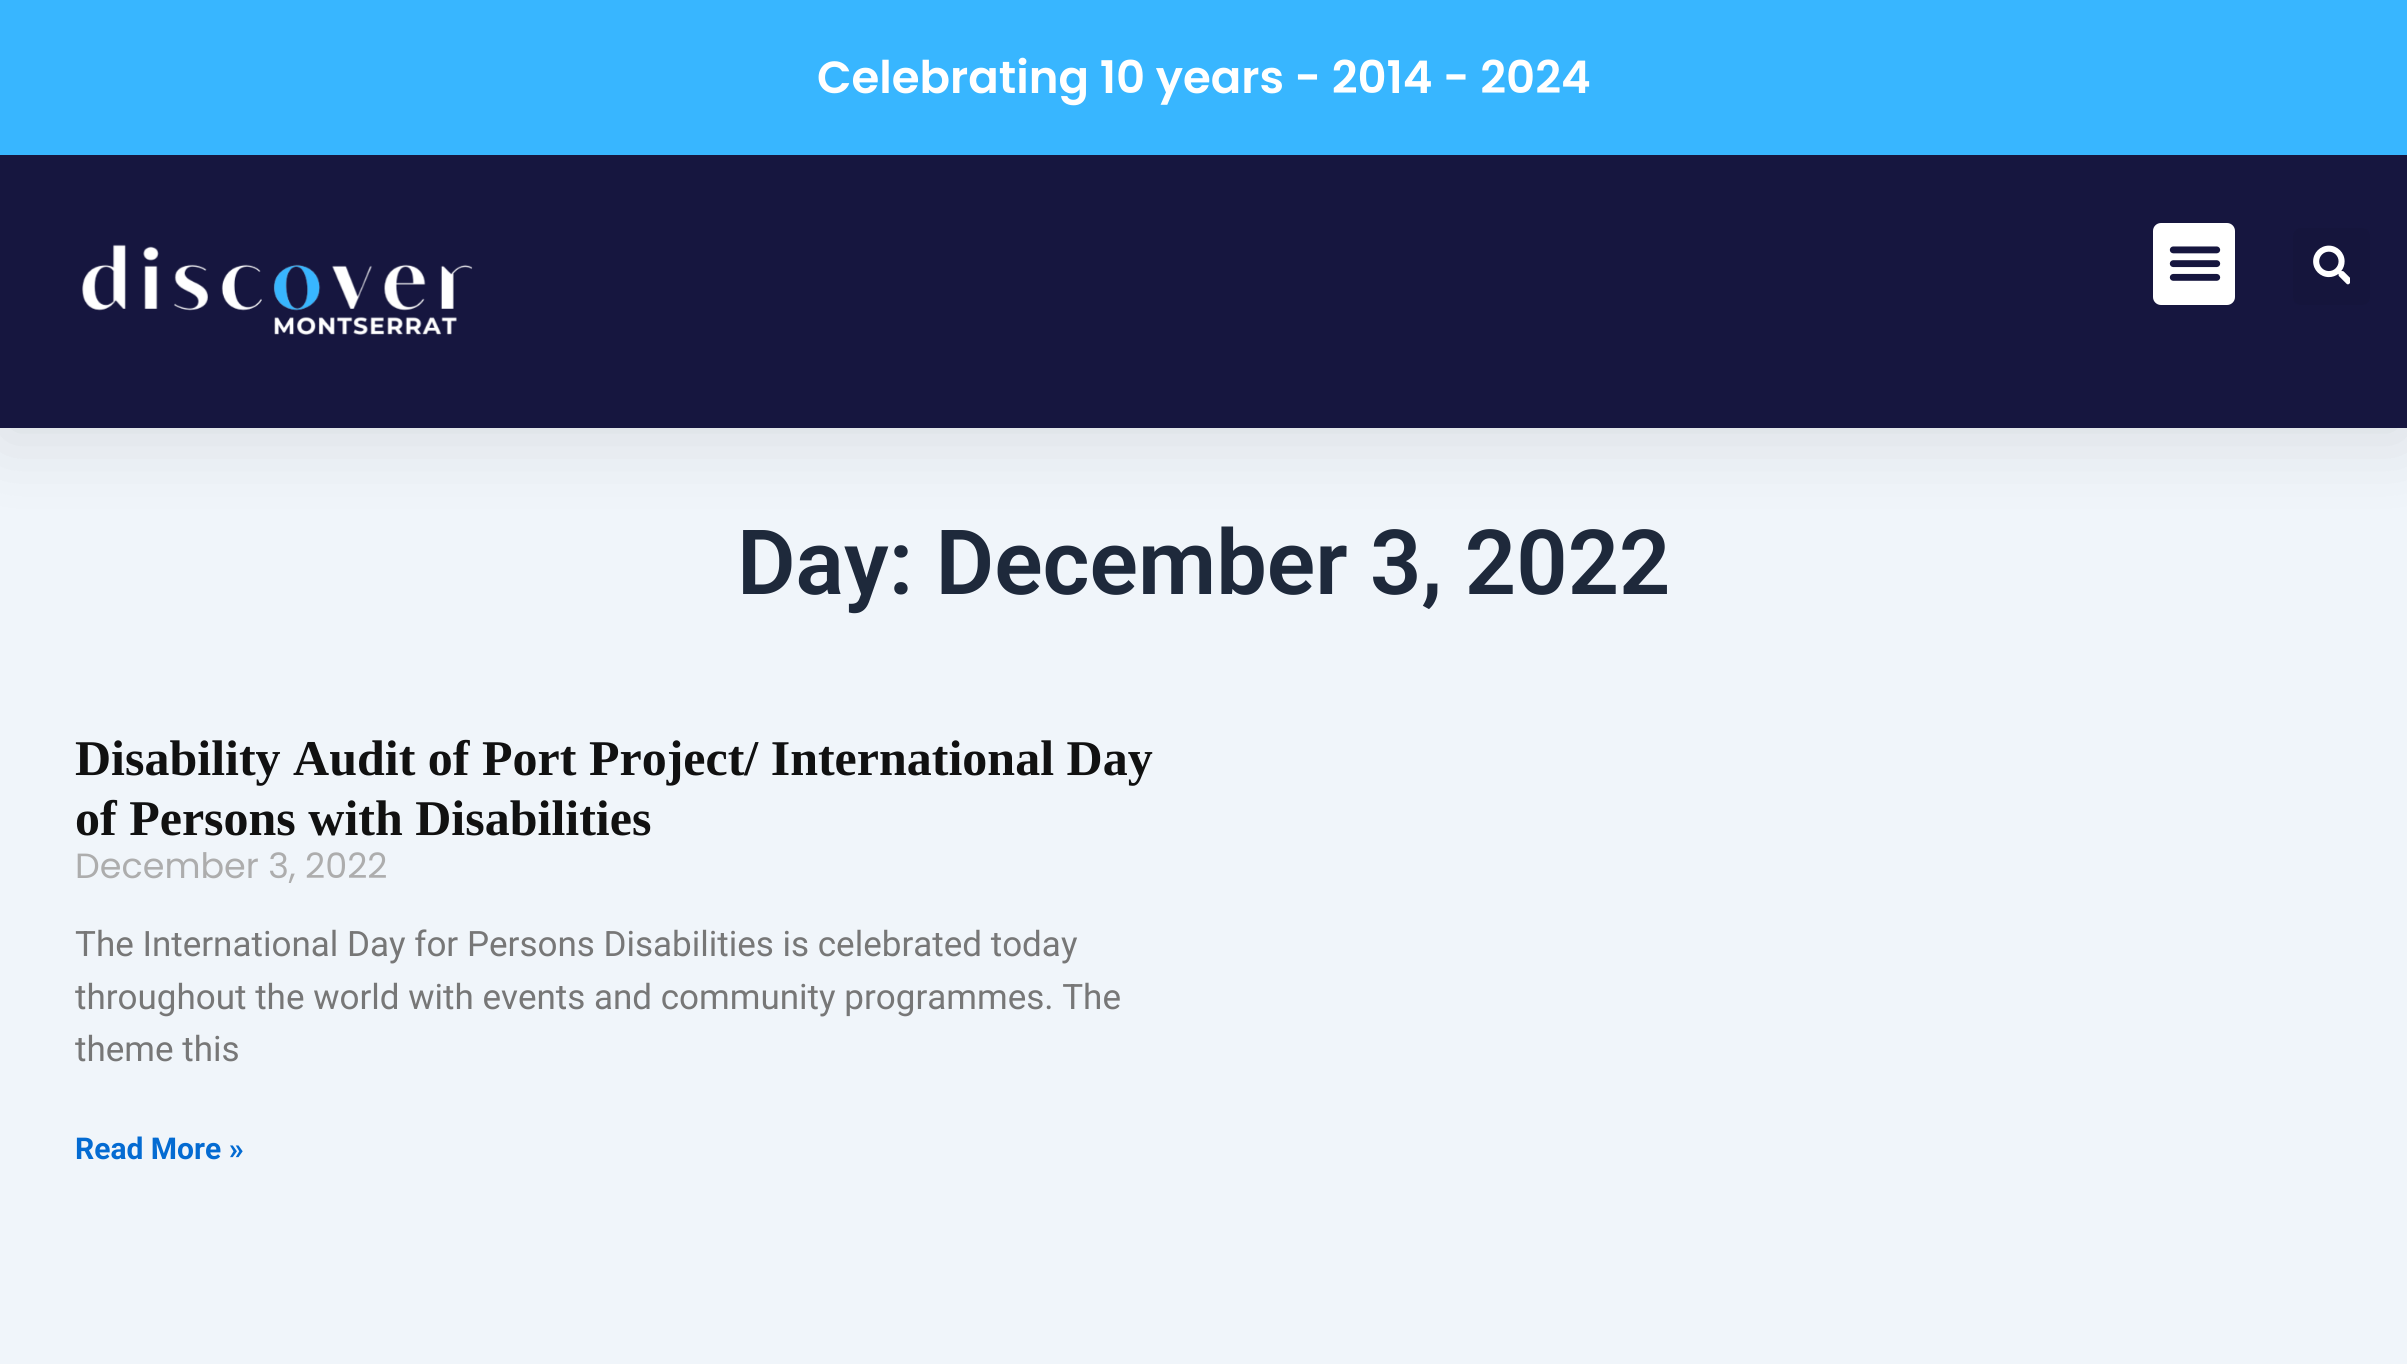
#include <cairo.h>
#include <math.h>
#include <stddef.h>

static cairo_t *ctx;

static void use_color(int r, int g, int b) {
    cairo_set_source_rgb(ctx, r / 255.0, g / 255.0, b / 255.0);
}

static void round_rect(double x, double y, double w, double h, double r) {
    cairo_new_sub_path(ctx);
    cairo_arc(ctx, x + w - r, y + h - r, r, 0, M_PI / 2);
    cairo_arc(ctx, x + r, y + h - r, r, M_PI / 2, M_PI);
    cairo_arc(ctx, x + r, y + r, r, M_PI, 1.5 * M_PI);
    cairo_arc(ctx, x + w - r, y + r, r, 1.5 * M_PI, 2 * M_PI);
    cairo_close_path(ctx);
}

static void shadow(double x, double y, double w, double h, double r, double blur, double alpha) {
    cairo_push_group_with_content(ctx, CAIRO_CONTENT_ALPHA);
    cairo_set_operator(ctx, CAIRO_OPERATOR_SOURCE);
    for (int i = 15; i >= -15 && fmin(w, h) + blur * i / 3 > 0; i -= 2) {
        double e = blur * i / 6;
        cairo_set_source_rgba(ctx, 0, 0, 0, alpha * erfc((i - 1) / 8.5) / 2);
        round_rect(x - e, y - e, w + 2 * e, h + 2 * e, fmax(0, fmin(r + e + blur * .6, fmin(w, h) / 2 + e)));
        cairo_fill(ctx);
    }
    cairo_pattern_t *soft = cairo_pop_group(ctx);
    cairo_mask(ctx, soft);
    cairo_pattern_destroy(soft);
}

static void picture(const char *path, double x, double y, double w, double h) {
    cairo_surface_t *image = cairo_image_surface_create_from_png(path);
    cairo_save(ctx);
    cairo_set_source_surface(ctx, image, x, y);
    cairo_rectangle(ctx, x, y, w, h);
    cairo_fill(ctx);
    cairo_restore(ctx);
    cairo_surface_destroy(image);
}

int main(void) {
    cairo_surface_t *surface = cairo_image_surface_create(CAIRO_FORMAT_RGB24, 2407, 1364);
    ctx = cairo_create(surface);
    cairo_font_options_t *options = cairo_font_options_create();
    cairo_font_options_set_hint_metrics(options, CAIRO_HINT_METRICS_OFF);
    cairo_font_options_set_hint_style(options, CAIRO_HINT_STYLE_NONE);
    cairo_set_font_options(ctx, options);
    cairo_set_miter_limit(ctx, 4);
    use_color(240, 245, 250);
    cairo_paint(ctx);
    use_color(0, 0, 0);
    shadow(0, 13, 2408, 427, 0, 37.5, 0.1);
    use_color(56, 182, 255);
    cairo_rectangle(ctx, 0, 0, 2407, 155);
    cairo_fill(ctx);
    cairo_select_font_face(ctx, "Poppins SemiBold", CAIRO_FONT_SLANT_NORMAL, CAIRO_FONT_WEIGHT_NORMAL);
    cairo_set_font_size(ctx, 45);
    use_color(255, 255, 255);
    cairo_move_to(ctx, 817, 93);
    cairo_show_text(ctx, "Celebrating 10 years - 2014 - 2024");
    use_color(22, 22, 63);
    cairo_rectangle(ctx, 0, 155, 2407, 273);
    cairo_fill(ctx);
    picture("img1.png", 82, 244, 391, 91);
    use_color(255, 255, 255);
    round_rect(2153, 223, 82, 82, 8);
    cairo_fill(ctx);
    picture("img2.png", 2169, 246, 52, 35);
    use_color(21, 21, 60);
    round_rect(2293, 228, 77, 77, 8);
    cairo_fill(ctx);
    picture("img3.png", 2313, 245, 37, 40);
    cairo_select_font_face(ctx, "Roboto SemiBold", CAIRO_FONT_SLANT_NORMAL, CAIRO_FONT_WEIGHT_NORMAL);
    cairo_set_font_size(ctx, 90);
    use_color(30, 41, 59);
    cairo_move_to(ctx, 737, 594);
    cairo_show_text(ctx, "Day: December 3, 2022");
    cairo_select_font_face(ctx, "Liberation Serif", CAIRO_FONT_SLANT_NORMAL, CAIRO_FONT_WEIGHT_BOLD);
    cairo_set_font_size(ctx, 50);
    use_color(17, 17, 17);
    cairo_move_to(ctx, 75, 775);
    cairo_show_text(ctx, "Disability Audit of Port Project/ International Day");
    cairo_move_to(ctx, 75, 835);
    cairo_show_text(ctx, "of Persons with Disabilities");
    cairo_select_font_face(ctx, "Poppins", CAIRO_FONT_SLANT_NORMAL, CAIRO_FONT_WEIGHT_NORMAL);
    cairo_set_font_size(ctx, 35);
    use_color(173, 173, 173);
    cairo_move_to(ctx, 75, 878);
    cairo_show_text(ctx, "December 3, 2022");
    cairo_select_font_face(ctx, "Roboto", CAIRO_FONT_SLANT_NORMAL, CAIRO_FONT_WEIGHT_NORMAL);
    use_color(119, 119, 119);
    cairo_move_to(ctx, 75, 956);
    cairo_show_text(ctx, "The International Day for Persons Disabilities is celebrated today");
    cairo_move_to(ctx, 75, 1009);
    cairo_show_text(ctx, "throughout the world with events and community programmes. The");
    cairo_move_to(ctx, 75, 1061);
    cairo_show_text(ctx, "theme this");
    cairo_select_font_face(ctx, "Roboto", CAIRO_FONT_SLANT_NORMAL, CAIRO_FONT_WEIGHT_BOLD);
    cairo_set_font_size(ctx, 30);
    use_color(4, 107, 210);
    cairo_move_to(ctx, 75, 1159);
    cairo_show_text(ctx, "Read More »");
    cairo_surface_write_to_png(surface, "result.png");
    cairo_font_options_destroy(options);
    cairo_destroy(ctx);
    cairo_surface_destroy(surface);
    return 0;
}
